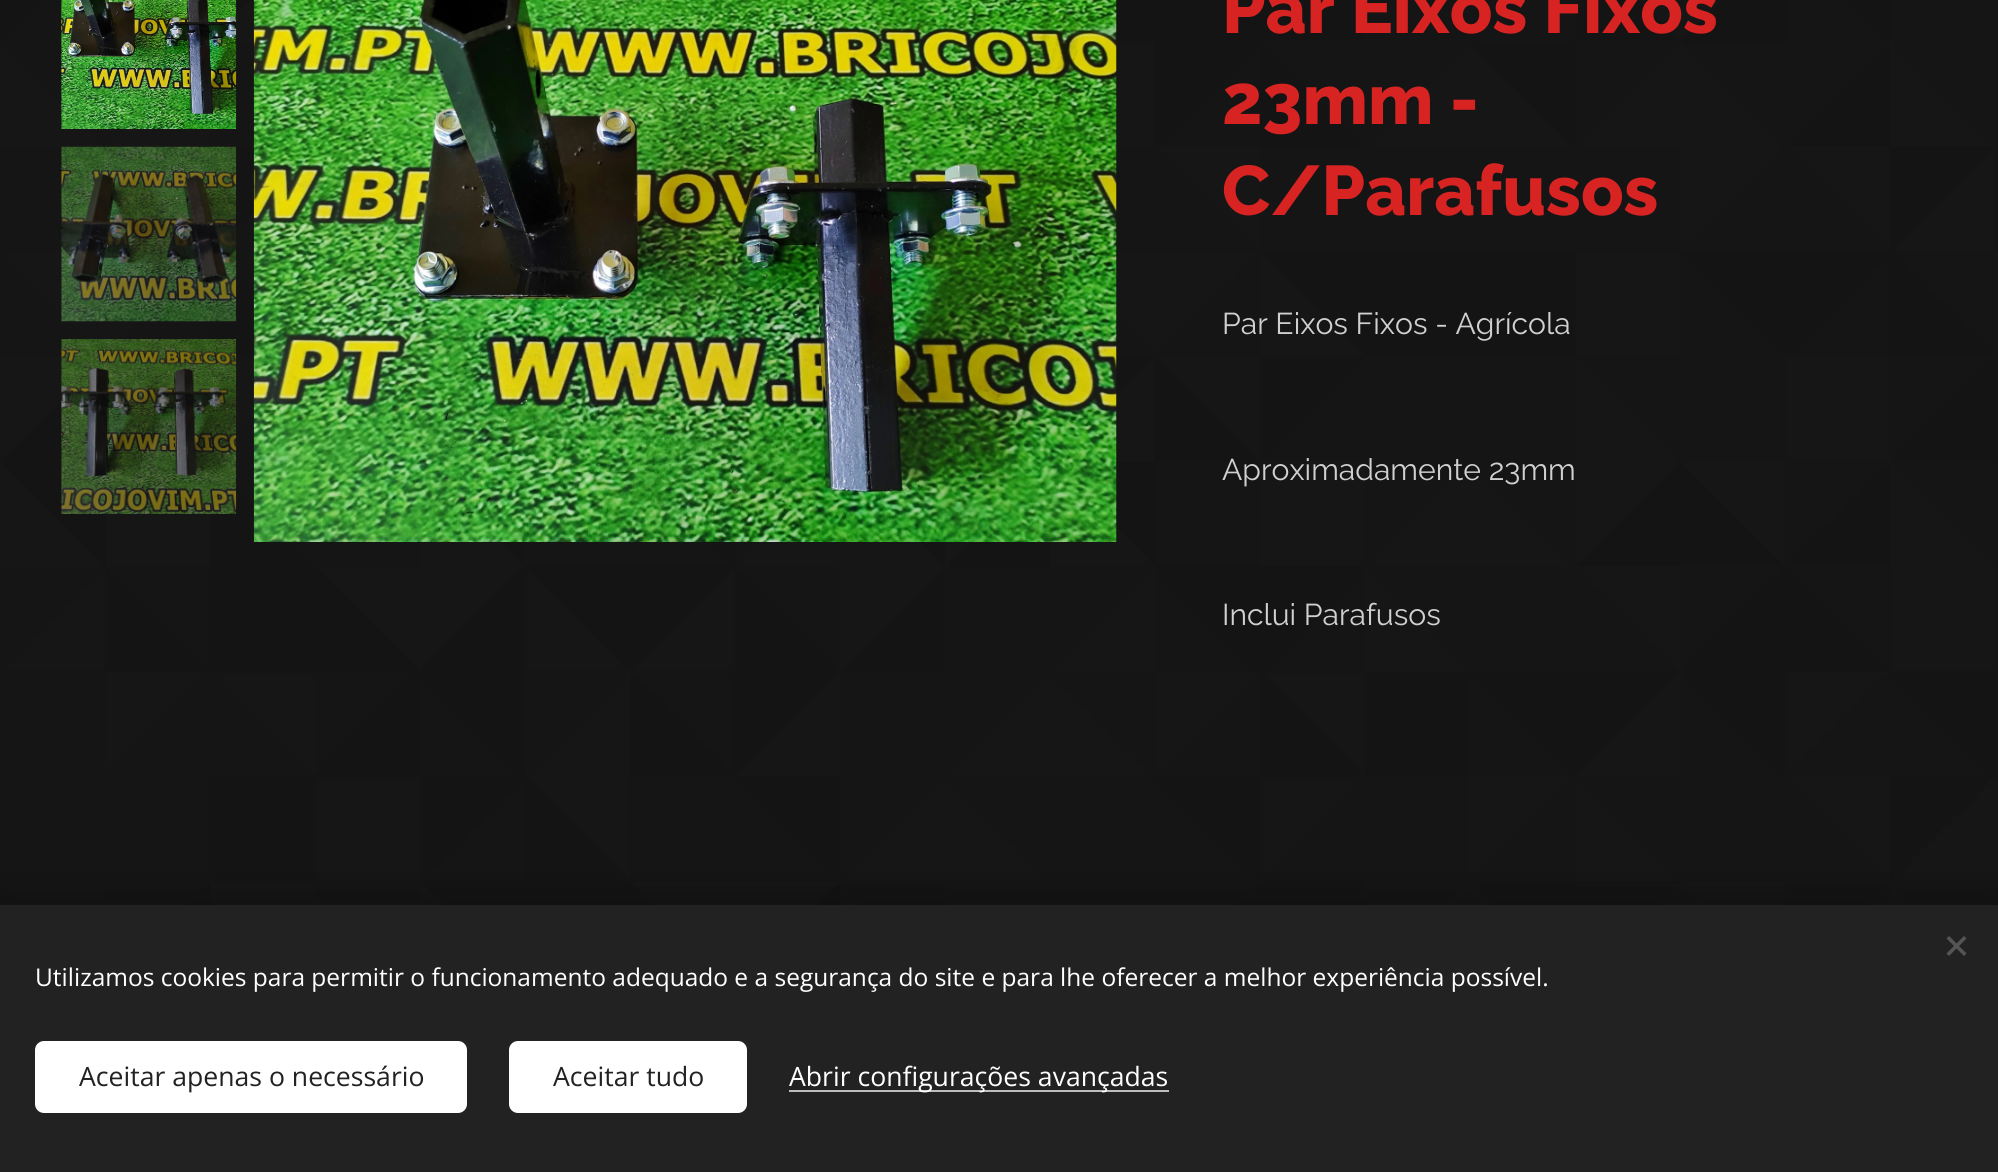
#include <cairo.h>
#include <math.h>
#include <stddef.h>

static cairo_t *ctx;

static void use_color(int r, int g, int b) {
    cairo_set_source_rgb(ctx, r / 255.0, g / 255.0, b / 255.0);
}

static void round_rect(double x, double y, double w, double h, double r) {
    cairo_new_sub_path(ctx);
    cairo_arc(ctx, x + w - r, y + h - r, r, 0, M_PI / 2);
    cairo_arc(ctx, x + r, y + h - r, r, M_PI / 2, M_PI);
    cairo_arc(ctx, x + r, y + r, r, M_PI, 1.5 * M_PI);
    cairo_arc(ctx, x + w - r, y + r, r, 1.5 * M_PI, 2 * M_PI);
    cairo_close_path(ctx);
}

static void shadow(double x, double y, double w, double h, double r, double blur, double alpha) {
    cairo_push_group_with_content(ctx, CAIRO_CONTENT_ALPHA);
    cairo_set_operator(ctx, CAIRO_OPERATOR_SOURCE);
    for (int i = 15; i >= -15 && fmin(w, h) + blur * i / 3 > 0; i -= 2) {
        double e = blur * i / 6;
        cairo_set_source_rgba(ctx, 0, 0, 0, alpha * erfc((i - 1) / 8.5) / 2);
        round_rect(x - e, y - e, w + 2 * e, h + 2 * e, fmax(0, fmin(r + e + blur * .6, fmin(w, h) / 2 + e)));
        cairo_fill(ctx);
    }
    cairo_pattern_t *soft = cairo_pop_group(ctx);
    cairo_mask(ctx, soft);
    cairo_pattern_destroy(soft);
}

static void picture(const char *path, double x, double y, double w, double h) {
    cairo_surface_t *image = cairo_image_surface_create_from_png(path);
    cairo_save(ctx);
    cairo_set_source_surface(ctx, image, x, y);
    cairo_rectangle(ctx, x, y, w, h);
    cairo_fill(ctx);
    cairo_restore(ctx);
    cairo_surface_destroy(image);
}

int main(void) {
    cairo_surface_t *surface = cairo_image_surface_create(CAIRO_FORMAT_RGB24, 1998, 1172);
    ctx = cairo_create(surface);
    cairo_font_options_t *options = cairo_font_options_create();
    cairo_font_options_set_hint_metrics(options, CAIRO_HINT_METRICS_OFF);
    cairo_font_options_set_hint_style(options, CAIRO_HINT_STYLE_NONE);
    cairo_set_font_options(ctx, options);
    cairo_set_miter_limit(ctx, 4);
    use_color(255, 255, 255);
    cairo_paint(ctx);
    picture("img1.png", 0, 0, 1998, 905);
    picture("img2.png", 61, 0, 176, 129);
    picture("img3.png", 61, 146, 176, 176);
    picture("img4.png", 61, 339, 176, 175);
    picture("img5.png", 253, 0, 864, 542);
    cairo_select_font_face(ctx, "Raleway ExtraBold", CAIRO_FONT_SLANT_NORMAL, CAIRO_FONT_WEIGHT_NORMAL);
    cairo_set_font_size(ctx, 70);
    use_color(216, 35, 35);
    cairo_move_to(ctx, 1222, 33);
    cairo_show_text(ctx, "Par Eixos Fixos");
    cairo_move_to(ctx, 1222, 124);
    cairo_show_text(ctx, "23mm -");
    cairo_move_to(ctx, 1222, 215);
    cairo_show_text(ctx, "C/Parafusos");
    cairo_select_font_face(ctx, "Raleway", CAIRO_FONT_SLANT_NORMAL, CAIRO_FONT_WEIGHT_NORMAL);
    cairo_set_font_size(ctx, 30.1);
    use_color(208, 208, 208);
    cairo_move_to(ctx, 1222, 334);
    cairo_show_text(ctx, "Par Eixos Fixos - Agrícola");
    cairo_move_to(ctx, 1222, 480);
    cairo_show_text(ctx, "Aproximadamente 23mm");
    cairo_move_to(ctx, 1222, 625);
    cairo_show_text(ctx, "Inclui Parafusos");
    use_color(0, 0, 0);
    shadow(0, 905, 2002, 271, 0, 22, 0.33);
    use_color(34, 34, 34);
    cairo_rectangle(ctx, 0, 905, 1998, 267);
    cairo_fill(ctx);
    use_color(85, 85, 85);
    cairo_new_path(ctx);
    cairo_move_to(ctx, 1946.5, 953.5);
    cairo_line_to(ctx, 1964, 936);
    cairo_line_to(ctx, 1966.5, 938.5);
    cairo_line_to(ctx, 1949, 956);
    cairo_close_path(ctx);
    cairo_fill(ctx);
    cairo_new_path(ctx);
    cairo_move_to(ctx, 1949, 936);
    cairo_line_to(ctx, 1966.5, 953.5);
    cairo_line_to(ctx, 1964, 956);
    cairo_line_to(ctx, 1946.5, 938.5);
    cairo_close_path(ctx);
    cairo_fill(ctx);
    cairo_select_font_face(ctx, "Open Sans", CAIRO_FONT_SLANT_NORMAL, CAIRO_FONT_WEIGHT_NORMAL);
    cairo_set_font_size(ctx, 24.5);
    use_color(255, 255, 255);
    cairo_move_to(ctx, 35, 986);
    cairo_show_text(ctx, "Utilizamos cookies para permitir o funcionamento adequado e a segurança do site e para lhe oferecer a melhor experiência possível.");
    round_rect(35, 1041, 432, 72, 9);
    cairo_fill(ctx);
    cairo_set_font_size(ctx, 26.6);
    use_color(34, 34, 34);
    cairo_move_to(ctx, 79, 1086);
    cairo_show_text(ctx, "Aceitar apenas o necessário");
    use_color(255, 255, 255);
    round_rect(509, 1041, 238, 72, 9);
    cairo_fill(ctx);
    use_color(34, 34, 34);
    cairo_move_to(ctx, 553, 1086);
    cairo_show_text(ctx, "Aceitar tudo");
    use_color(189, 189, 189);
    cairo_rectangle(ctx, 789, 1090, 380, 2);
    cairo_fill(ctx);
    use_color(255, 255, 255);
    cairo_move_to(ctx, 789, 1086);
    cairo_show_text(ctx, "Abrir configurações avançadas");
    cairo_surface_write_to_png(surface, "result.png");
    cairo_font_options_destroy(options);
    cairo_destroy(ctx);
    cairo_surface_destroy(surface);
    return 0;
}
